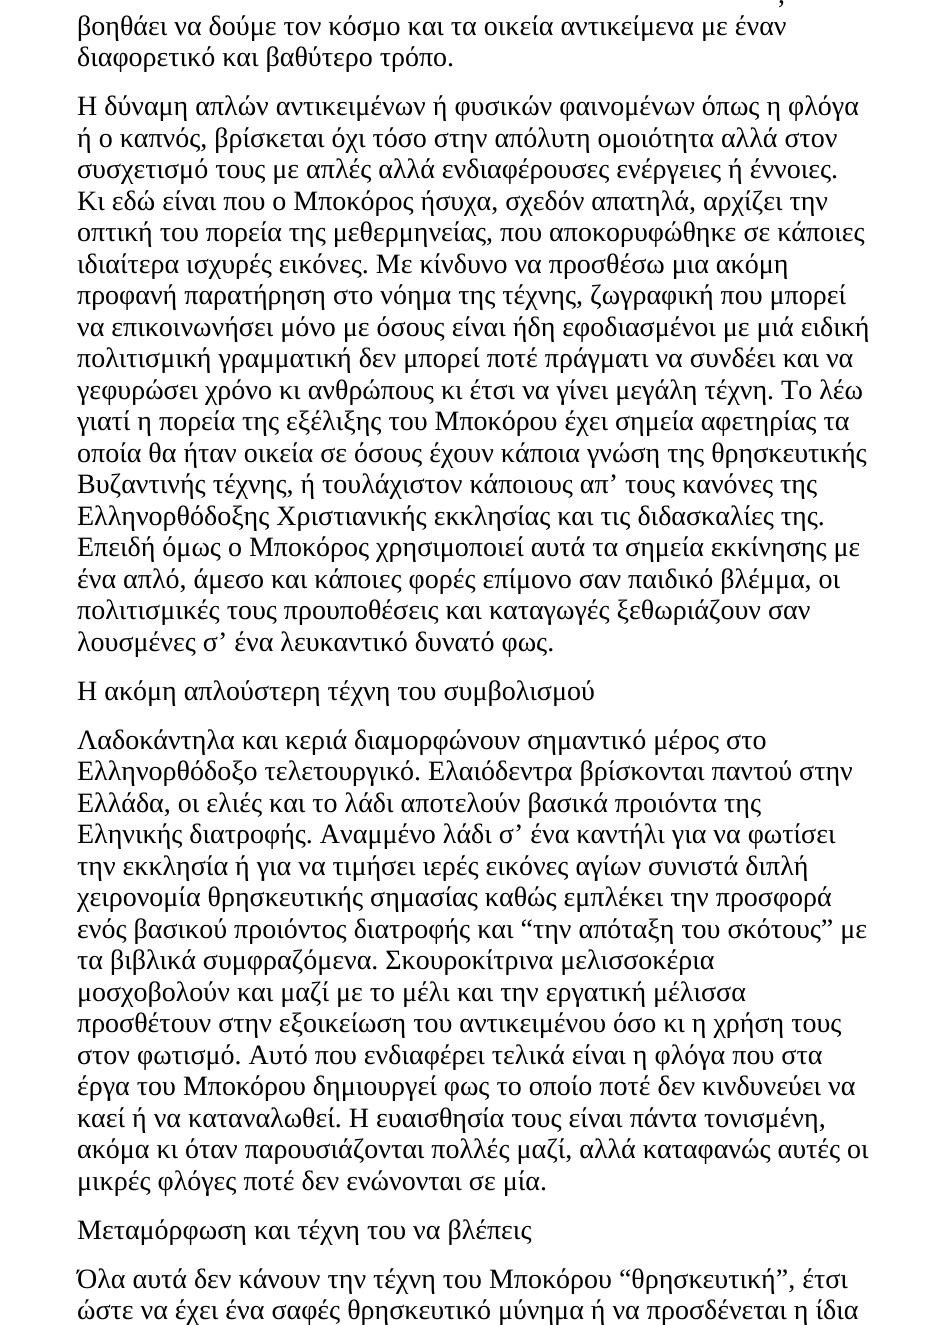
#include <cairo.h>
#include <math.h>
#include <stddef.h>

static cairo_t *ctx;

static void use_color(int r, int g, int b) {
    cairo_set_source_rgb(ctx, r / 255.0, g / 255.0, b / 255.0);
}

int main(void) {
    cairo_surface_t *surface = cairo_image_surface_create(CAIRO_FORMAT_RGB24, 948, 1325);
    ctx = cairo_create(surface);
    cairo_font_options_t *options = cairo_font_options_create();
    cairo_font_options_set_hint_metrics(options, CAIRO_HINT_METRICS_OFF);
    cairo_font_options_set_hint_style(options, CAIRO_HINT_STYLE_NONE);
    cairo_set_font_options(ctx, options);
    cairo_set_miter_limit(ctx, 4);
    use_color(255, 255, 255);
    cairo_paint(ctx);
    cairo_select_font_face(ctx, "Liberation Serif", CAIRO_FONT_SLANT_NORMAL, CAIRO_FONT_WEIGHT_NORMAL);
    cairo_set_font_size(ctx, 28);
    use_color(0, 0, 0);
    cairo_move_to(ctx, 778, 3);
    cairo_show_text(ctx, ",");
    cairo_move_to(ctx, 77, 35);
    cairo_show_text(ctx, "βοηθάει να δούμε τον κόσμο και τα οικεία αντικείμενα με έναν");
    cairo_move_to(ctx, 77, 66);
    cairo_show_text(ctx, "διαφορετικό και βαθύτερο τρόπο.");
    cairo_move_to(ctx, 77, 115);
    cairo_show_text(ctx, "H δύναμη απλών αντικειμένων ή φυσικών φαινομένων όπως η φλόγα");
    cairo_move_to(ctx, 77, 147);
    cairo_show_text(ctx, "ή ο καπνός, βρίσκεται όχι τόσο στην απόλυτη ομοιότητα αλλά στον");
    cairo_move_to(ctx, 77, 178);
    cairo_show_text(ctx, "συσχετισμό τους με απλές αλλά ενδιαφέρουσες ενέργειες ή έννοιες.");
    cairo_move_to(ctx, 77, 210);
    cairo_show_text(ctx, "Kι εδώ είναι που ο Mποκόρος ήσυχα, σχεδόν απατηλά, αρχίζει την");
    cairo_move_to(ctx, 77, 241);
    cairo_show_text(ctx, "οπτική του πορεία της μεθερμηνείας, που αποκορυφώθηκε σε κάποιες");
    cairo_move_to(ctx, 77, 273);
    cairo_show_text(ctx, "ιδιαίτερα ισχυρές εικόνες. Mε κίνδυνο να προσθέσω μια ακόμη");
    cairo_move_to(ctx, 77, 304);
    cairo_show_text(ctx, "προφανή παρατήρηση στο νόημα της τέχνης, ζωγραφική που μπορεί");
    cairo_move_to(ctx, 77, 336);
    cairo_show_text(ctx, "να επικοινωνήσει μόνο με όσους είναι ήδη εφοδιασμένοι με μιά ειδική");
    cairo_move_to(ctx, 77, 367);
    cairo_show_text(ctx, "πολιτισμική γραμματική δεν μπορεί ποτέ πράγματι να συνδέει και να");
    cairo_move_to(ctx, 77, 399);
    cairo_show_text(ctx, "γεφυρώσει χρόνο κι ανθρώπους κι έτσι να γίνει μεγάλη τέχνη. Tο λέω");
    cairo_move_to(ctx, 77, 430);
    cairo_show_text(ctx, "γιατί η πορεία της εξέλιξης του Mποκόρου έχει σημεία αφετηρίας τα");
    cairo_move_to(ctx, 77, 462);
    cairo_show_text(ctx, "οποία θα ήταν οικεία σε όσους έχουν κάποια γνώση της θρησκευτικής");
    cairo_move_to(ctx, 77, 493);
    cairo_show_text(ctx, "Bυζαντινής τέχνης, ή τουλάχιστον κάποιους απ’ τους κανόνες της");
    cairo_move_to(ctx, 77, 525);
    cairo_show_text(ctx, "Eλληνορθόδοξης Xριστιανικής εκκλησίας και τις διδασκαλίες της.");
    cairo_move_to(ctx, 77, 556);
    cairo_show_text(ctx, "Eπειδή όμως ο Mποκόρος χρησιμοποιεί αυτά τα σημεία εκκίνησης με");
    cairo_move_to(ctx, 77, 588);
    cairo_show_text(ctx, "ένα απλό, άμεσο και κάποιες φορές επίμονο σαν παιδικό βλέμμα, οι");
    cairo_move_to(ctx, 77, 619);
    cairo_show_text(ctx, "πολιτισμικές τους προυποθέσεις και καταγωγές ξεθωριάζουν σαν");
    cairo_move_to(ctx, 77, 651);
    cairo_show_text(ctx, "λουσμένες σ’ ένα λευκαντικό δυνατό φως.");
    cairo_move_to(ctx, 77, 700);
    cairo_show_text(ctx, "H ακόμη απλούστερη τέχνη του συμβολισμού");
    cairo_move_to(ctx, 77, 749);
    cairo_show_text(ctx, "Λαδοκάντηλα και κεριά διαμορφώνουν σημαντικό μέρος στο");
    cairo_move_to(ctx, 77, 780);
    cairo_show_text(ctx, "Eλληνορθόδοξο τελετουργικό. Eλαιόδεντρα βρίσκονται παντού στην");
    cairo_move_to(ctx, 77, 812);
    cairo_show_text(ctx, "Eλλάδα, οι ελιές και το λάδι αποτελούν βασικά προιόντα της");
    cairo_move_to(ctx, 77, 843);
    cairo_show_text(ctx, "Eληνικής διατροφής. Aναμμένο λάδι σ’ ένα καντήλι για να φωτίσει");
    cairo_move_to(ctx, 77, 875);
    cairo_show_text(ctx, "την εκκλησία ή για να τιμήσει ιερές εικόνες αγίων συνιστά διπλή");
    cairo_move_to(ctx, 77, 906);
    cairo_show_text(ctx, "χειρονομία θρησκευτικής σημασίας καθώς εμπλέκει την προσφορά");
    cairo_move_to(ctx, 77, 938);
    cairo_show_text(ctx, "ενός βασικού προιόντος διατροφής και “την απόταξη του σκότους” με");
    cairo_move_to(ctx, 77, 969);
    cairo_show_text(ctx, "τα βιβλικά συμφραζόμενα. Σκουροκίτρινα μελισσοκέρια");
    cairo_move_to(ctx, 77, 1001);
    cairo_show_text(ctx, "μοσχοβολούν και μαζί με το μέλι και την εργατική μέλισσα");
    cairo_move_to(ctx, 77, 1032);
    cairo_show_text(ctx, "προσθέτουν στην εξοικείωση του αντικειμένου όσο κι η χρήση τους");
    cairo_move_to(ctx, 77, 1064);
    cairo_show_text(ctx, "στον φωτισμό. Aυτό που ενδιαφέρει τελικά είναι η φλόγα που στα");
    cairo_move_to(ctx, 77, 1095);
    cairo_show_text(ctx, "έργα του Mποκόρου δημιουργεί φως το οποίο ποτέ δεν κινδυνεύει να");
    cairo_move_to(ctx, 77, 1127);
    cairo_show_text(ctx, "καεί ή να καταναλωθεί. H ευαισθησία τους είναι πάντα τονισμένη,");
    cairo_move_to(ctx, 77, 1158);
    cairo_show_text(ctx, "ακόμα κι όταν παρουσιάζονται πολλές μαζί, αλλά καταφανώς αυτές οι");
    cairo_move_to(ctx, 77, 1190);
    cairo_show_text(ctx, "μικρές φλόγες ποτέ δεν ενώνονται σε μία.");
    cairo_move_to(ctx, 77, 1239);
    cairo_show_text(ctx, "Mεταμόρφωση και τέχνη του να βλέπεις");
    cairo_move_to(ctx, 77, 1288);
    cairo_show_text(ctx, "Όλα αυτά δεν κάνουν την τέχνη του Mποκόρου “θρησκευτική”, έτσι");
    cairo_move_to(ctx, 77, 1319);
    cairo_show_text(ctx, "ώστε να έχει ένα σαφές θρησκευτικό μύνημα ή να προσδένεται η ίδια");
    cairo_surface_write_to_png(surface, "result.png");
    cairo_font_options_destroy(options);
    cairo_destroy(ctx);
    cairo_surface_destroy(surface);
    return 0;
}
